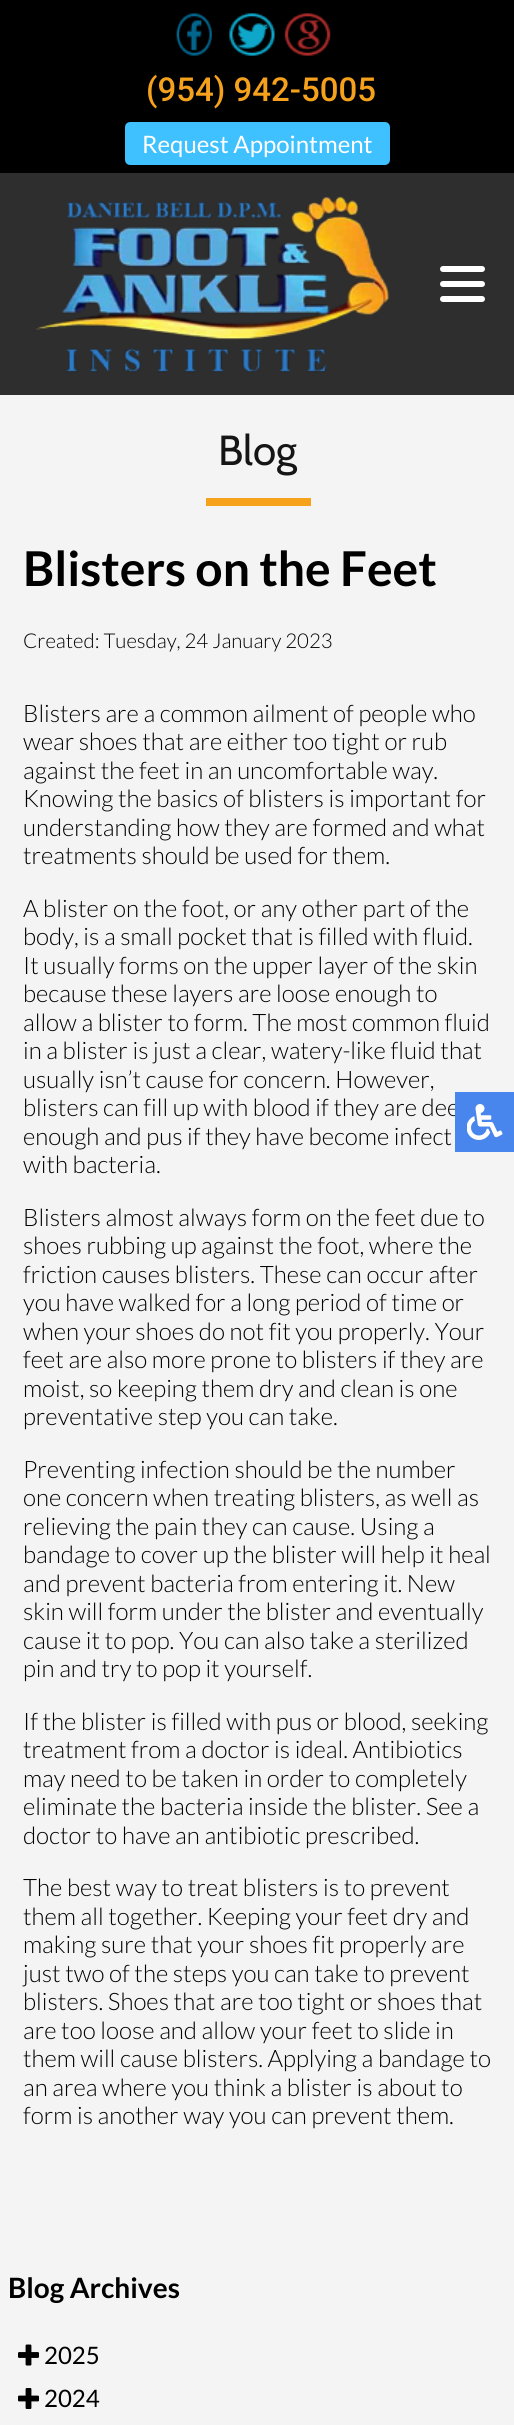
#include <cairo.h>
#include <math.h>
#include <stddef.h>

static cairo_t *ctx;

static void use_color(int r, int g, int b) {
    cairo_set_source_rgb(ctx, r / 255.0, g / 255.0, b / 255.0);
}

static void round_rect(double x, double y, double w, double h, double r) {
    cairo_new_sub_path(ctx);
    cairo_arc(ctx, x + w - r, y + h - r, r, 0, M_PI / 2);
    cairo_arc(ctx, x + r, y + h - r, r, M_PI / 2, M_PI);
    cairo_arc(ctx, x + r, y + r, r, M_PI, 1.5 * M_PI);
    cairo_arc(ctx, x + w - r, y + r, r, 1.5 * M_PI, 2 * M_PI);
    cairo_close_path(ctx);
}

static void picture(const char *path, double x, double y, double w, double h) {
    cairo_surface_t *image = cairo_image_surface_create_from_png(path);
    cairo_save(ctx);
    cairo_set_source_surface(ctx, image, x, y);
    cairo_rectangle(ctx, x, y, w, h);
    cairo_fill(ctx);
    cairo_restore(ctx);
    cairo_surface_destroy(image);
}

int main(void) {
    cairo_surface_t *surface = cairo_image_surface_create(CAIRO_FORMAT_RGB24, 514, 2425);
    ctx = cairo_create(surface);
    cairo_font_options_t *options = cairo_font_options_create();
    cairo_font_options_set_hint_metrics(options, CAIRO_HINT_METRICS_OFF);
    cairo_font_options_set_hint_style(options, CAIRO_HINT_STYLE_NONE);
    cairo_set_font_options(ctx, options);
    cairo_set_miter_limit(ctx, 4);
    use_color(244, 244, 244);
    cairo_paint(ctx);
    use_color(46, 46, 46);
    cairo_rectangle(ctx, 0, 173, 514, 222);
    cairo_fill(ctx);
    use_color(0, 0, 0);
    cairo_rectangle(ctx, 0, 0, 514, 173);
    cairo_fill(ctx);
    picture("img1.png", 176, 13, 36, 43);
    picture("img2.png", 229, 13, 46, 43);
    picture("img3.png", 284, 13, 47, 43);
    cairo_select_font_face(ctx, "Roboto Medium", CAIRO_FONT_SLANT_NORMAL, CAIRO_FONT_WEIGHT_NORMAL);
    cairo_set_font_size(ctx, 33);
    use_color(245, 161, 27);
    cairo_move_to(ctx, 146, 101);
    cairo_show_text(ctx, "(954) 942-5005");
    use_color(62, 193, 254);
    round_rect(126.5, 123.5, 262, 40, 3.5);
    cairo_fill_preserve(ctx);
    cairo_set_line_width(ctx, 3);
    cairo_stroke(ctx);
    cairo_select_font_face(ctx, "Lato", CAIRO_FONT_SLANT_NORMAL, CAIRO_FONT_WEIGHT_NORMAL);
    cairo_set_font_size(ctx, 24);
    use_color(255, 255, 255);
    cairo_move_to(ctx, 142, 153);
    cairo_show_text(ctx, "Request Appointment");
    picture("img4.png", 35, 196, 355, 177);
    round_rect(440, 266, 45, 6, 3);
    cairo_fill(ctx);
    round_rect(440, 281, 45, 6, 3);
    cairo_fill(ctx);
    round_rect(440, 296, 45, 6, 3);
    cairo_fill(ctx);
    cairo_select_font_face(ctx, "Cabin", CAIRO_FONT_SLANT_NORMAL, CAIRO_FONT_WEIGHT_NORMAL);
    cairo_set_font_size(ctx, 42);
    use_color(21, 21, 21);
    cairo_move_to(ctx, 218, 465);
    cairo_show_text(ctx, "Blog");
    use_color(246, 162, 27);
    cairo_rectangle(ctx, 206, 498, 105, 8);
    cairo_fill(ctx);
    cairo_select_font_face(ctx, "Lato", CAIRO_FONT_SLANT_NORMAL, CAIRO_FONT_WEIGHT_BOLD);
    cairo_set_font_size(ctx, 48);
    use_color(0, 0, 0);
    cairo_move_to(ctx, 23, 586);
    cairo_show_text(ctx, "Blisters on the Feet");
    cairo_select_font_face(ctx, "Lato Light", CAIRO_FONT_SLANT_NORMAL, CAIRO_FONT_WEIGHT_NORMAL);
    cairo_set_font_size(ctx, 20.4);
    cairo_move_to(ctx, 23, 648);
    cairo_show_text(ctx, "Created: Tuesday, 24 January 2023");
    cairo_set_font_size(ctx, 24);
    cairo_move_to(ctx, 23, 722);
    cairo_show_text(ctx, "Blisters are a common ailment of people who");
    cairo_move_to(ctx, 23, 750);
    cairo_show_text(ctx, "wear shoes that are either too tight or rub");
    cairo_move_to(ctx, 23, 779);
    cairo_show_text(ctx, "against the feet in an uncomfortable way.");
    cairo_move_to(ctx, 23, 807);
    cairo_show_text(ctx, "Knowing the basics of blisters is important for");
    cairo_move_to(ctx, 23, 836);
    cairo_show_text(ctx, "understanding how they are formed and what");
    cairo_move_to(ctx, 23, 864);
    cairo_show_text(ctx, "treatments should be used for them.");
    cairo_move_to(ctx, 23, 917);
    cairo_show_text(ctx, "A blister on the foot, or any other part of the");
    cairo_move_to(ctx, 23, 945);
    cairo_show_text(ctx, "body, is a small pocket that is filled with fluid.");
    cairo_move_to(ctx, 23, 974);
    cairo_show_text(ctx, "It usually forms on the upper layer of the skin");
    cairo_move_to(ctx, 23, 1002);
    cairo_show_text(ctx, "because these layers are loose enough to");
    cairo_move_to(ctx, 23, 1031);
    cairo_show_text(ctx, "allow a blister to form. The most common fluid");
    cairo_move_to(ctx, 23, 1059);
    cairo_show_text(ctx, "in a blister is just a clear, watery-like fluid that");
    cairo_move_to(ctx, 23, 1088);
    cairo_show_text(ctx, "usually isn’t cause for concern. However,");
    cairo_move_to(ctx, 23, 1116);
    cairo_show_text(ctx, "blisters can fill up with blood if they are dee");
    cairo_move_to(ctx, 23, 1145);
    cairo_show_text(ctx, "enough and pus if they have become infect");
    cairo_move_to(ctx, 23, 1173);
    cairo_show_text(ctx, "with bacteria.");
    cairo_move_to(ctx, 23, 1226);
    cairo_show_text(ctx, "Blisters almost always form on the feet due to");
    cairo_move_to(ctx, 23, 1254);
    cairo_show_text(ctx, "shoes rubbing up against the foot, where the");
    cairo_move_to(ctx, 23, 1283);
    cairo_show_text(ctx, "friction causes blisters. These can occur after");
    cairo_move_to(ctx, 23, 1311);
    cairo_show_text(ctx, "you have walked for a long period of time or");
    cairo_move_to(ctx, 23, 1340);
    cairo_show_text(ctx, "when your shoes do not fit you properly. Your");
    cairo_move_to(ctx, 23, 1368);
    cairo_show_text(ctx, "feet are also more prone to blisters if they are");
    cairo_move_to(ctx, 23, 1397);
    cairo_show_text(ctx, "moist, so keeping them dry and clean is one");
    cairo_move_to(ctx, 23, 1425);
    cairo_show_text(ctx, "preventative step you can take.");
    cairo_move_to(ctx, 23, 1478);
    cairo_show_text(ctx, "Preventing infection should be the number");
    cairo_move_to(ctx, 23, 1506);
    cairo_show_text(ctx, "one concern when treating blisters, as well as");
    cairo_move_to(ctx, 23, 1535);
    cairo_show_text(ctx, "relieving the pain they can cause. Using a");
    cairo_move_to(ctx, 23, 1563);
    cairo_show_text(ctx, "bandage to cover up the blister will help it heal");
    cairo_move_to(ctx, 23, 1592);
    cairo_show_text(ctx, "and prevent bacteria from entering it. New");
    cairo_move_to(ctx, 23, 1620);
    cairo_show_text(ctx, "skin will form under the blister and eventually");
    cairo_move_to(ctx, 23, 1649);
    cairo_show_text(ctx, "cause it to pop. You can also take a sterilized");
    cairo_move_to(ctx, 23, 1677);
    cairo_show_text(ctx, "pin and try to pop it yourself.");
    cairo_move_to(ctx, 23, 1730);
    cairo_show_text(ctx, "If the blister is filled with pus or blood, seeking");
    cairo_move_to(ctx, 23, 1758);
    cairo_show_text(ctx, "treatment from a doctor is ideal. Antibiotics");
    cairo_move_to(ctx, 23, 1787);
    cairo_show_text(ctx, "may need to be taken in order to completely");
    cairo_move_to(ctx, 23, 1815);
    cairo_show_text(ctx, "eliminate the bacteria inside the blister. See a");
    cairo_move_to(ctx, 23, 1844);
    cairo_show_text(ctx, "doctor to have an antibiotic prescribed.");
    cairo_move_to(ctx, 23, 1896);
    cairo_show_text(ctx, "The best way to treat blisters is to prevent");
    cairo_move_to(ctx, 23, 1925);
    cairo_show_text(ctx, "them all together. Keeping your feet dry and");
    cairo_move_to(ctx, 23, 1953);
    cairo_show_text(ctx, "making sure that your shoes fit properly are");
    cairo_move_to(ctx, 23, 1982);
    cairo_show_text(ctx, "just two of the steps you can take to prevent");
    cairo_move_to(ctx, 23, 2010);
    cairo_show_text(ctx, "blisters. Shoes that are too tight or shoes that");
    cairo_move_to(ctx, 23, 2039);
    cairo_show_text(ctx, "are too loose and allow your feet to slide in");
    cairo_move_to(ctx, 23, 2067);
    cairo_show_text(ctx, "them will cause blisters. Applying a bandage to");
    cairo_move_to(ctx, 23, 2096);
    cairo_show_text(ctx, "an area where you think a blister is about to");
    cairo_move_to(ctx, 23, 2124);
    cairo_show_text(ctx, "form is another way you can prevent them.");
    cairo_select_font_face(ctx, "Lato", CAIRO_FONT_SLANT_NORMAL, CAIRO_FONT_WEIGHT_BOLD);
    cairo_set_font_size(ctx, 28);
    cairo_move_to(ctx, 8, 2298);
    cairo_show_text(ctx, "Blog Archives");
    picture("img5.png", 18, 2344, 21, 22);
    cairo_select_font_face(ctx, "Lato", CAIRO_FONT_SLANT_NORMAL, CAIRO_FONT_WEIGHT_NORMAL);
    cairo_set_font_size(ctx, 24);
    cairo_move_to(ctx, 44, 2364);
    cairo_show_text(ctx, "2025");
    picture("img6.png", 18, 2388, 21, 21);
    cairo_move_to(ctx, 44, 2407);
    cairo_show_text(ctx, "2024");
    use_color(72, 133, 237);
    cairo_rectangle(ctx, 455, 1092, 59, 60);
    cairo_fill(ctx);
    picture("img7.png", 467, 1104, 36, 36);
    cairo_surface_write_to_png(surface, "result.png");
    cairo_font_options_destroy(options);
    cairo_destroy(ctx);
    cairo_surface_destroy(surface);
    return 0;
}
